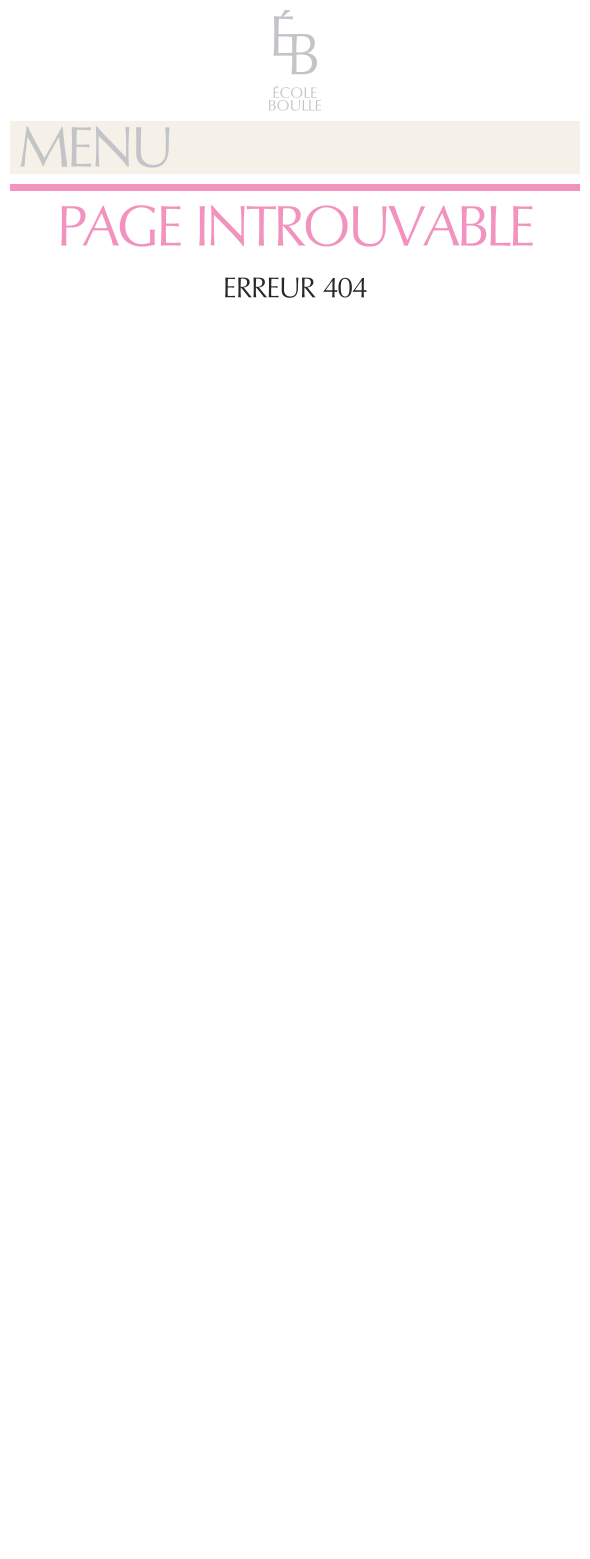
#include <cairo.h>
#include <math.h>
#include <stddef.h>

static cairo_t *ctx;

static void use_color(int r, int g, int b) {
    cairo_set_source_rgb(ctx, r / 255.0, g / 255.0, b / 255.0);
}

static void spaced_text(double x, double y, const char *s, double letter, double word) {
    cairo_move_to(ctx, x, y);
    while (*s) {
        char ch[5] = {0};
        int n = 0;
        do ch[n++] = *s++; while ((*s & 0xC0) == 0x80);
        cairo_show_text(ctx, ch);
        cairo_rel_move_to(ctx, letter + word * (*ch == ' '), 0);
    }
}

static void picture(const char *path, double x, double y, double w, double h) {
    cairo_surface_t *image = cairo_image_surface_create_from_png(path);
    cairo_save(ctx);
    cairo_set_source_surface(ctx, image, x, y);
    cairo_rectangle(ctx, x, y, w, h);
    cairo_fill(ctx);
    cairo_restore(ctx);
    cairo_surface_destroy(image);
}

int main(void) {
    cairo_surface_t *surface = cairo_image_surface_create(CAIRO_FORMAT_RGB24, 590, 1559);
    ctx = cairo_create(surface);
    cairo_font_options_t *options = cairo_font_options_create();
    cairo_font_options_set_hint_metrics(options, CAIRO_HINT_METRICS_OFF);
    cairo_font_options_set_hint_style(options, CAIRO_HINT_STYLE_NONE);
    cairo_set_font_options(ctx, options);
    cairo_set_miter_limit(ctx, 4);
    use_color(255, 255, 255);
    cairo_paint(ctx);
    picture("img1.png", 269, 10, 52, 101);
    use_color(245, 241, 233);
    cairo_rectangle(ctx, 10, 121, 570, 53);
    cairo_fill(ctx);
    cairo_select_font_face(ctx, "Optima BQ", CAIRO_FONT_SLANT_NORMAL, CAIRO_FONT_WEIGHT_NORMAL);
    cairo_set_font_size(ctx, 56);
    use_color(195, 196, 199);
    spaced_text(19, 166, "MENU", -2.25, 0);
    use_color(242, 146, 190);
    cairo_rectangle(ctx, 10, 184, 570, 7);
    cairo_fill(ctx);
    spaced_text(57, 245, "PAGE INTROUVABLE", -2.25, 0);
    cairo_set_font_size(ctx, 28);
    use_color(40, 40, 40);
    spaced_text(223, 297, "ERREUR 404", -0.5, 0);
    cairo_surface_write_to_png(surface, "result.png");
    cairo_font_options_destroy(options);
    cairo_destroy(ctx);
    cairo_surface_destroy(surface);
    return 0;
}
